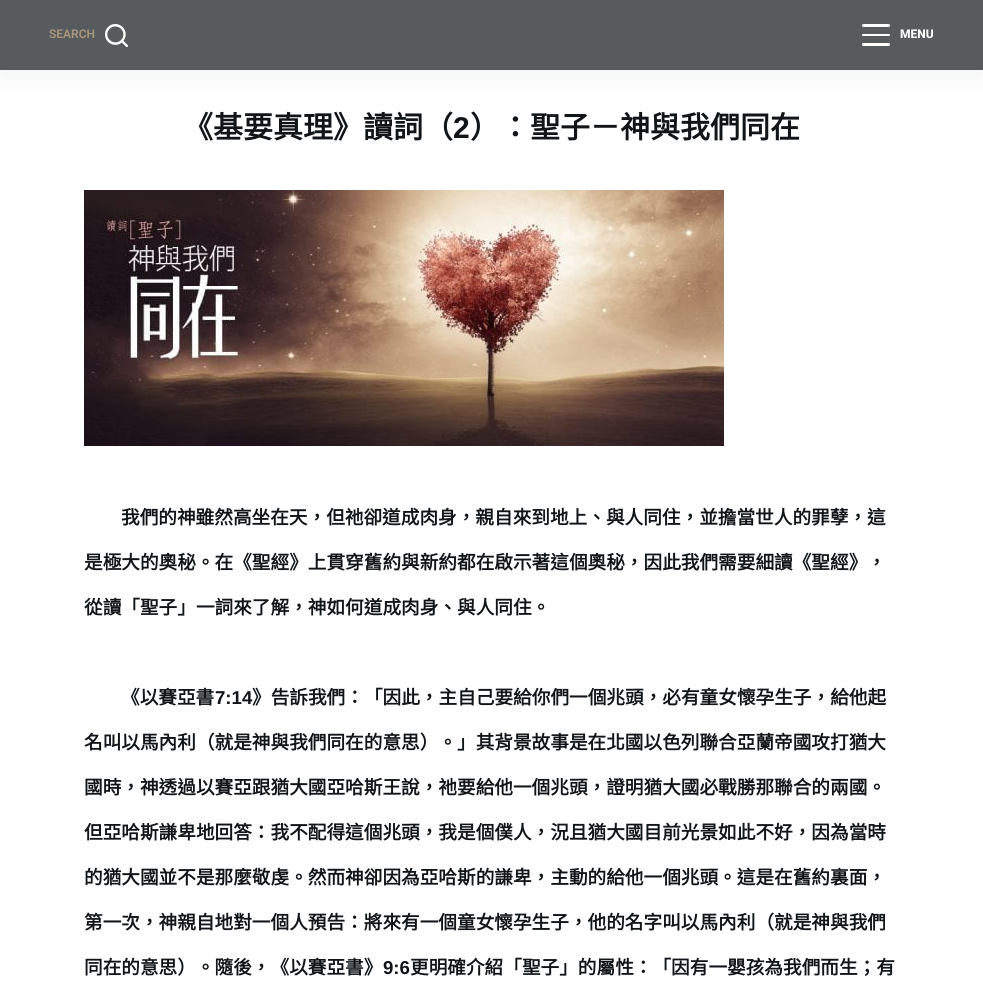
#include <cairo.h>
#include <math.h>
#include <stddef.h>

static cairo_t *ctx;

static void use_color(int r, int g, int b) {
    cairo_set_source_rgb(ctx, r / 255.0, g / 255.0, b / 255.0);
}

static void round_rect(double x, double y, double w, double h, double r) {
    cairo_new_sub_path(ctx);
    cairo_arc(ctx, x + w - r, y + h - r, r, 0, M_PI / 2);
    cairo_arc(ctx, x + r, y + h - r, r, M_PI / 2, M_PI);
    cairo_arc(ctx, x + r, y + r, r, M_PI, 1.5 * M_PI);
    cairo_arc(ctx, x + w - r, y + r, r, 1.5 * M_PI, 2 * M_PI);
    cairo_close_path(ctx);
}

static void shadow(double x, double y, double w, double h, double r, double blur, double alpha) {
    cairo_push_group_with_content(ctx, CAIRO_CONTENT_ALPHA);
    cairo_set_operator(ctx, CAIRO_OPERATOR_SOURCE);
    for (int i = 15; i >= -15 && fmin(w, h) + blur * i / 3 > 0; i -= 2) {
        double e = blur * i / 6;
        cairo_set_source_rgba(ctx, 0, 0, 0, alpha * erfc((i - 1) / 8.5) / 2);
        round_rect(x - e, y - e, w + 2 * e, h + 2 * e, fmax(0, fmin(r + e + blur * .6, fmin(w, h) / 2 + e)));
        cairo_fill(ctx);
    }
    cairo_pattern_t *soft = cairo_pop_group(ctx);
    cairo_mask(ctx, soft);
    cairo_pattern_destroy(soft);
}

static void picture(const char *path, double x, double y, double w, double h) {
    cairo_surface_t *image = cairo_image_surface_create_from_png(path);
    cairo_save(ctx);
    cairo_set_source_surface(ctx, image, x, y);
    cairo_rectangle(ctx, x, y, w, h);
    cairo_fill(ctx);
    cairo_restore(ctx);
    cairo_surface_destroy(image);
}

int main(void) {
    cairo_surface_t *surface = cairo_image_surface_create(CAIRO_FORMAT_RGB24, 983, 998);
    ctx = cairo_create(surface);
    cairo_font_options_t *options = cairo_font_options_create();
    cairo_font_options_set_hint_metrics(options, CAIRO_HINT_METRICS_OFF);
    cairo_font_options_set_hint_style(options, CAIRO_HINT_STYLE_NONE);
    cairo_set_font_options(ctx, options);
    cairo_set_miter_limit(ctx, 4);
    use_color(255, 255, 255);
    cairo_paint(ctx);
    use_color(44, 62, 80);
    shadow(0, 10, 983, 70, 0, 10, 0.05);
    use_color(88, 91, 93);
    cairo_rectangle(ctx, 0, 0, 983, 70);
    cairo_fill(ctx);
    cairo_select_font_face(ctx, "Roboto SemiBold", CAIRO_FONT_SLANT_NORMAL, CAIRO_FONT_WEIGHT_NORMAL);
    cairo_set_font_size(ctx, 12);
    use_color(168, 151, 123);
    cairo_move_to(ctx, 49, 38);
    cairo_show_text(ctx, "SEARCH");
    picture("img1.png", 105, 24, 23, 23);
    use_color(255, 255, 255);
    round_rect(862, 24, 28, 3, 1.5);
    cairo_fill(ctx);
    round_rect(862, 34, 28, 2, 1);
    cairo_fill(ctx);
    round_rect(862, 43, 28, 3, 1.5);
    cairo_fill(ctx);
    cairo_select_font_face(ctx, "Roboto ExtraBold", CAIRO_FONT_SLANT_NORMAL, CAIRO_FONT_WEIGHT_NORMAL);
    cairo_move_to(ctx, 900, 38);
    cairo_show_text(ctx, "MENU");
    cairo_select_font_face(ctx, "Noto Sans CJK TC", CAIRO_FONT_SLANT_NORMAL, CAIRO_FONT_WEIGHT_BOLD);
    cairo_set_font_size(ctx, 30);
    use_color(17, 21, 24);
    cairo_move_to(ctx, 183, 138);
    cairo_show_text(ctx, "《基要真理》讀詞（");
    cairo_select_font_face(ctx, "Liberation Sans", CAIRO_FONT_SLANT_NORMAL, CAIRO_FONT_WEIGHT_BOLD);
    cairo_move_to(ctx, 453, 138);
    cairo_show_text(ctx, "2");
    cairo_select_font_face(ctx, "Noto Sans CJK TC", CAIRO_FONT_SLANT_NORMAL, CAIRO_FONT_WEIGHT_BOLD);
    cairo_move_to(ctx, 470, 138);
    cairo_show_text(ctx, "）：聖子－神與我們同在");
    picture("img2.png", 84, 190, 640, 256);
    cairo_set_font_size(ctx, 18.65);
    cairo_move_to(ctx, 121, 524);
    cairo_show_text(ctx, "我們的神雖然高坐在天，但祂卻道成肉身，親自來到地上、與人同住，並擔當世人的罪孽，這");
    cairo_move_to(ctx, 84, 569);
    cairo_show_text(ctx, "是極大的奧秘。在《聖經》上貫穿舊約與新約都在啟示著這個奧秘，因此我們需要細讀《聖經》，");
    cairo_move_to(ctx, 84, 614);
    cairo_show_text(ctx, "從讀「聖子」一詞來了解，神如何道成肉身、與人同住。");
    cairo_move_to(ctx, 121, 704);
    cairo_show_text(ctx, "《以賽亞書");
    cairo_select_font_face(ctx, "Liberation Sans", CAIRO_FONT_SLANT_NORMAL, CAIRO_FONT_WEIGHT_BOLD);
    cairo_move_to(ctx, 215, 704);
    cairo_show_text(ctx, "7:14");
    cairo_select_font_face(ctx, "Noto Sans CJK TC", CAIRO_FONT_SLANT_NORMAL, CAIRO_FONT_WEIGHT_BOLD);
    cairo_move_to(ctx, 252, 704);
    cairo_show_text(ctx, "》告訴我們：「因此，主自己要給你們一個兆頭，必有童女懷孕生子，給他起");
    cairo_move_to(ctx, 84, 749);
    cairo_show_text(ctx, "名叫以馬內利（就是神與我們同在的意思）。」其背景故事是在北國以色列聯合亞蘭帝國攻打猶大");
    cairo_move_to(ctx, 84, 794);
    cairo_show_text(ctx, "國時，神透過以賽亞跟猶大國亞哈斯王說，祂要給他一個兆頭，證明猶大國必戰勝那聯合的兩國。");
    cairo_move_to(ctx, 84, 839);
    cairo_show_text(ctx, "但亞哈斯謙卑地回答：我不配得這個兆頭，我是個僕人，況且猶大國目前光景如此不好，因為當時");
    cairo_move_to(ctx, 84, 884);
    cairo_show_text(ctx, "的猶大國並不是那麼敬虔。然而神卻因為亞哈斯的謙卑，主動的給他一個兆頭。這是在舊約裏面，");
    cairo_move_to(ctx, 84, 929);
    cairo_show_text(ctx, "第一次，神親自地對一個人預告：將來有一個童女懷孕生子，他的名字叫以馬內利（就是神與我們");
    cairo_move_to(ctx, 84, 974);
    cairo_show_text(ctx, "同在的意思）。隨後，《以賽亞書》");
    cairo_select_font_face(ctx, "Liberation Sans", CAIRO_FONT_SLANT_NORMAL, CAIRO_FONT_WEIGHT_BOLD);
    cairo_move_to(ctx, 383, 974);
    cairo_show_text(ctx, "9:6");
    cairo_select_font_face(ctx, "Noto Sans CJK TC", CAIRO_FONT_SLANT_NORMAL, CAIRO_FONT_WEIGHT_BOLD);
    cairo_move_to(ctx, 410, 974);
    cairo_show_text(ctx, "更明確介紹「聖子」的屬性：「因有一嬰孩為我們而生；有");
    cairo_surface_write_to_png(surface, "result.png");
    cairo_font_options_destroy(options);
    cairo_destroy(ctx);
    cairo_surface_destroy(surface);
    return 0;
}
